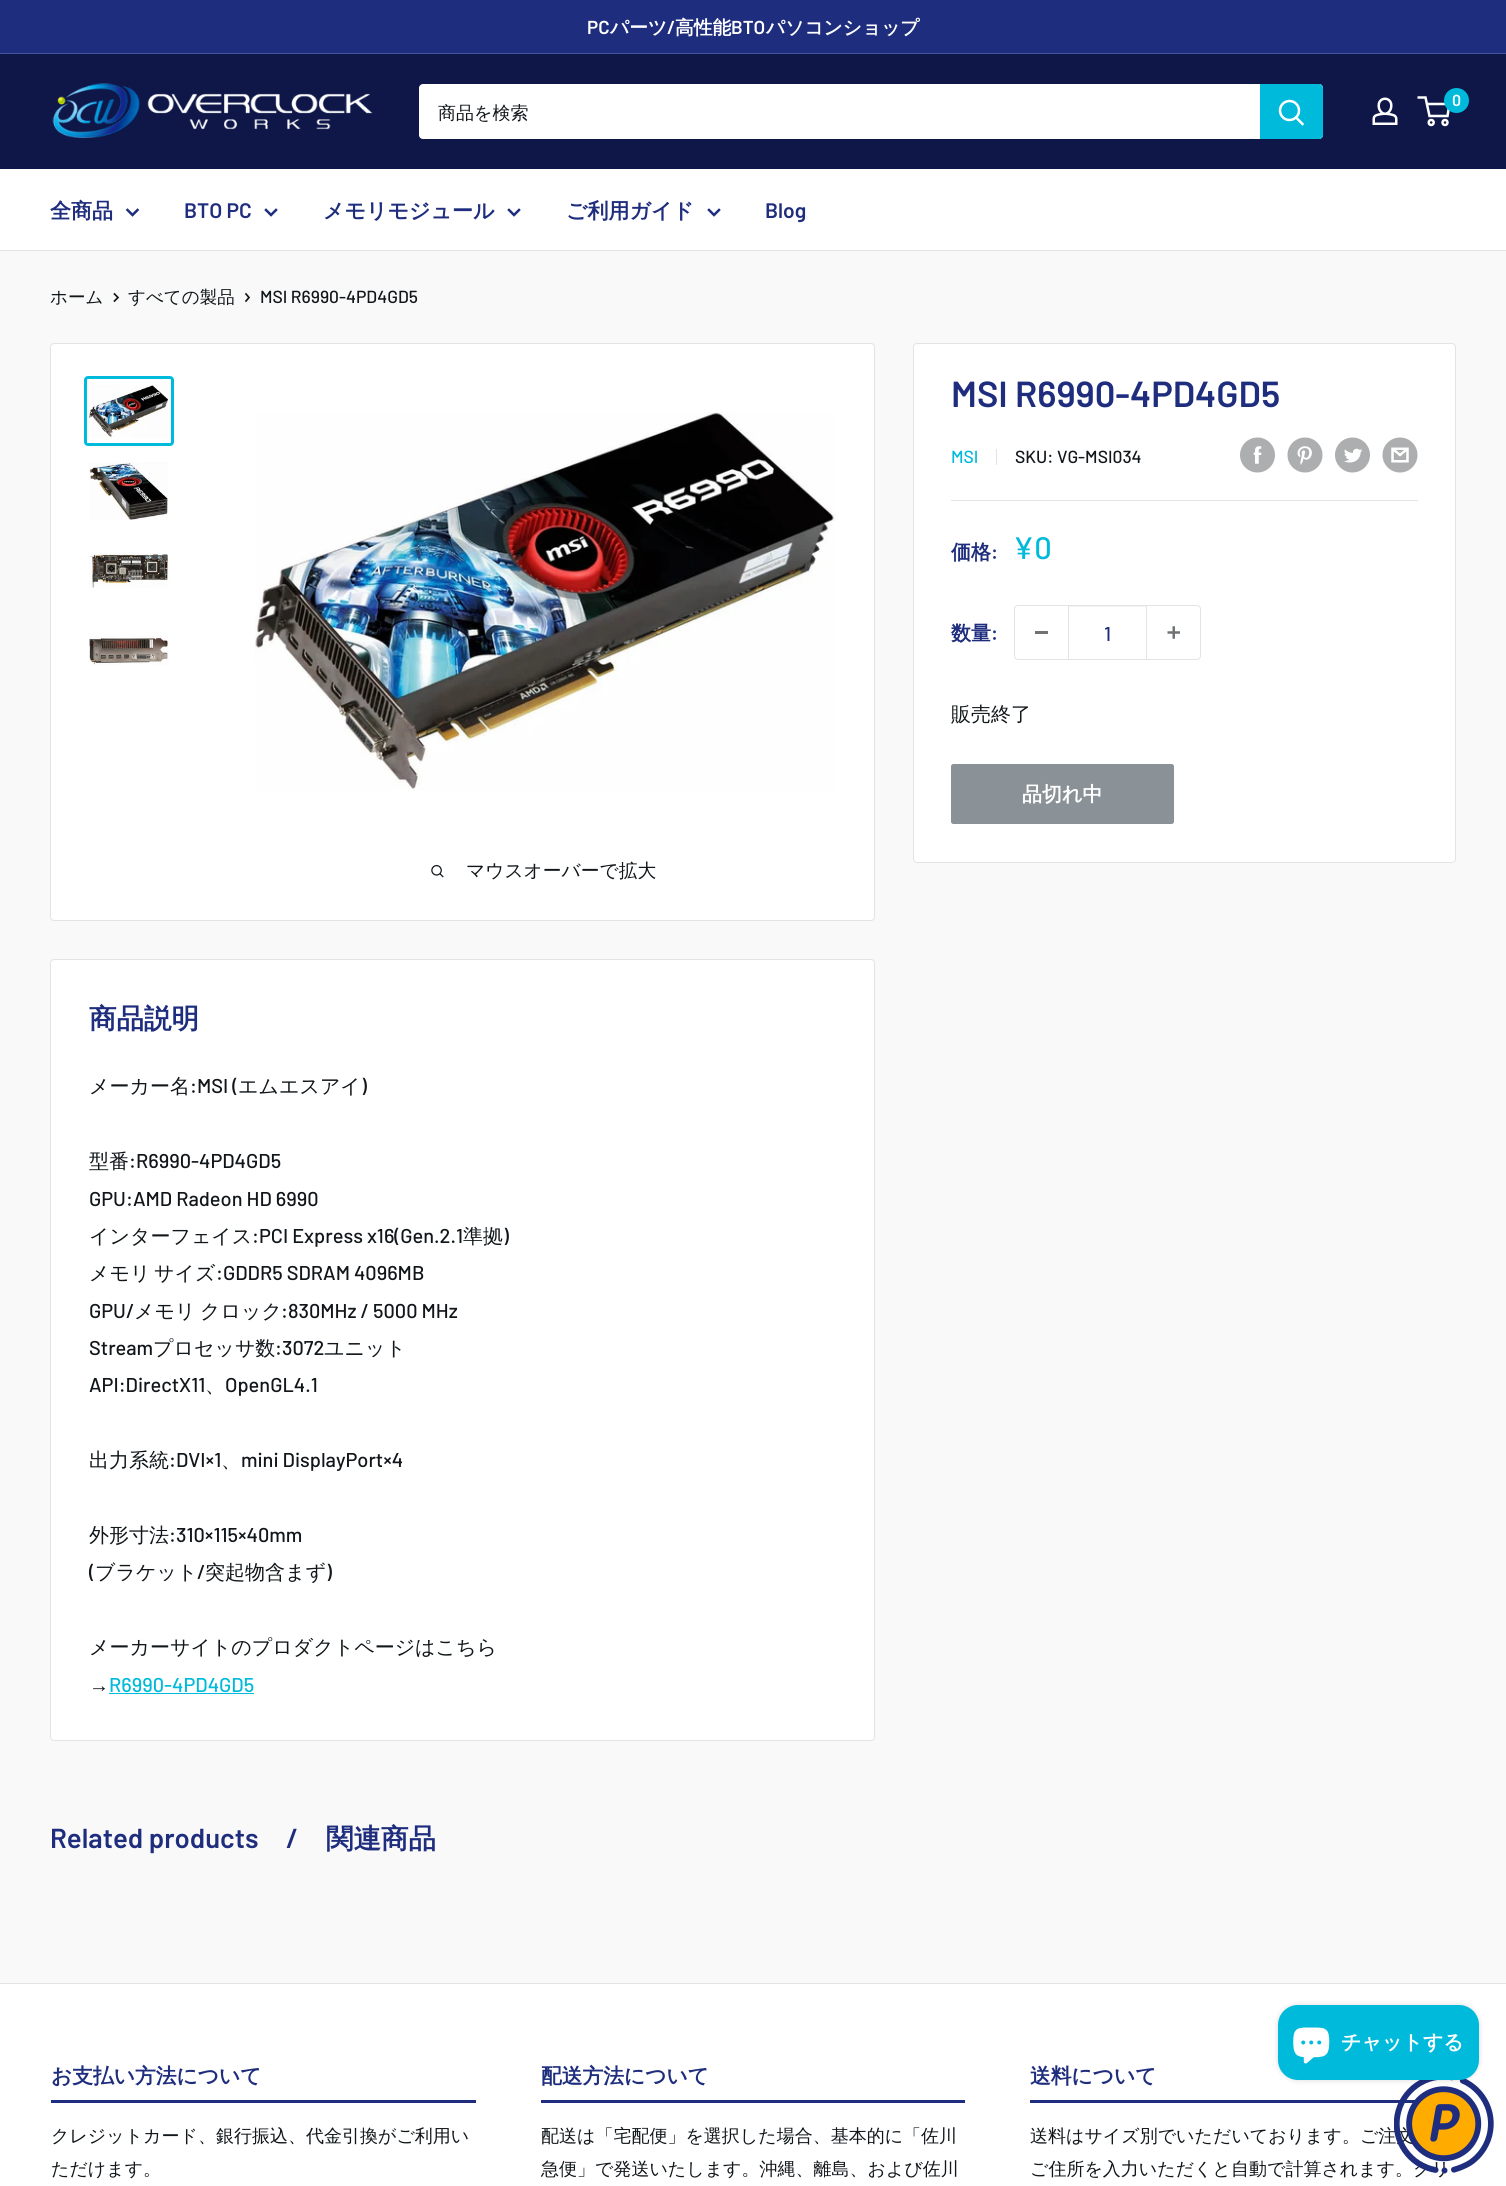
#include <cairo.h>
#include <math.h>
#include <stddef.h>

static cairo_t *ctx;

static void use_color(int r, int g, int b) {
    cairo_set_source_rgb(ctx, r / 255.0, g / 255.0, b / 255.0);
}

static void round_rect(double x, double y, double w, double h, double r) {
    cairo_new_sub_path(ctx);
    cairo_arc(ctx, x + w - r, y + h - r, r, 0, M_PI / 2);
    cairo_arc(ctx, x + r, y + h - r, r, M_PI / 2, M_PI);
    cairo_arc(ctx, x + r, y + r, r, M_PI, 1.5 * M_PI);
    cairo_arc(ctx, x + w - r, y + r, r, 1.5 * M_PI, 2 * M_PI);
    cairo_close_path(ctx);
}

static void shadow(double x, double y, double w, double h, double r, double blur, double alpha) {
    cairo_push_group_with_content(ctx, CAIRO_CONTENT_ALPHA);
    cairo_set_operator(ctx, CAIRO_OPERATOR_SOURCE);
    for (int i = 15; i >= -15 && fmin(w, h) + blur * i / 3 > 0; i -= 2) {
        double e = blur * i / 6;
        cairo_set_source_rgba(ctx, 0, 0, 0, alpha * erfc((i - 1) / 8.5) / 2);
        round_rect(x - e, y - e, w + 2 * e, h + 2 * e, fmax(0, fmin(r + e + blur * .6, fmin(w, h) / 2 + e)));
        cairo_fill(ctx);
    }
    cairo_pattern_t *soft = cairo_pop_group(ctx);
    cairo_mask(ctx, soft);
    cairo_pattern_destroy(soft);
}

static void picture(const char *path, double x, double y, double w, double h) {
    cairo_surface_t *image = cairo_image_surface_create_from_png(path);
    cairo_save(ctx);
    cairo_set_source_surface(ctx, image, x, y);
    cairo_rectangle(ctx, x, y, w, h);
    cairo_fill(ctx);
    cairo_restore(ctx);
    cairo_surface_destroy(image);
}

int main(void) {
    cairo_surface_t *surface = cairo_image_surface_create(CAIRO_FORMAT_RGB24, 1506, 2186);
    ctx = cairo_create(surface);
    cairo_font_options_t *options = cairo_font_options_create();
    cairo_font_options_set_hint_metrics(options, CAIRO_HINT_METRICS_OFF);
    cairo_font_options_set_hint_style(options, CAIRO_HINT_STYLE_NONE);
    cairo_set_font_options(ctx, options);
    cairo_set_miter_limit(ctx, 4);
    use_color(249, 249, 249);
    cairo_paint(ctx);
    use_color(30, 45, 125);
    cairo_rectangle(ctx, 0, 0, 1506, 53);
    cairo_fill(ctx);
    use_color(70, 84, 159);
    cairo_rectangle(ctx, 0, 53, 1506, 1);
    cairo_fill(ctx);
    cairo_select_font_face(ctx, "Barlow SemiBold", CAIRO_FONT_SLANT_NORMAL, CAIRO_FONT_WEIGHT_NORMAL);
    cairo_set_font_size(ctx, 18.75);
    use_color(255, 255, 255);
    cairo_move_to(ctx, 587, 34);
    cairo_show_text(ctx, "PC");
    cairo_select_font_face(ctx, "WenQuanYi Zen Hei", CAIRO_FONT_SLANT_NORMAL, CAIRO_FONT_WEIGHT_BOLD);
    cairo_move_to(ctx, 610, 34);
    cairo_show_text(ctx, "パーツ");
    cairo_select_font_face(ctx, "Barlow SemiBold", CAIRO_FONT_SLANT_NORMAL, CAIRO_FONT_WEIGHT_NORMAL);
    cairo_move_to(ctx, 667, 34);
    cairo_show_text(ctx, "/");
    cairo_select_font_face(ctx, "WenQuanYi Zen Hei", CAIRO_FONT_SLANT_NORMAL, CAIRO_FONT_WEIGHT_BOLD);
    cairo_move_to(ctx, 675, 34);
    cairo_show_text(ctx, "高性能");
    cairo_select_font_face(ctx, "Barlow SemiBold", CAIRO_FONT_SLANT_NORMAL, CAIRO_FONT_WEIGHT_NORMAL);
    cairo_move_to(ctx, 731, 34);
    cairo_show_text(ctx, "BTO");
    cairo_select_font_face(ctx, "WenQuanYi Zen Hei", CAIRO_FONT_SLANT_NORMAL, CAIRO_FONT_WEIGHT_BOLD);
    cairo_move_to(ctx, 766, 34);
    cairo_show_text(ctx, "パソコンショップ");
    use_color(14, 23, 72);
    cairo_rectangle(ctx, 0, 54, 1506, 115);
    cairo_fill(ctx);
    picture("img1.png", 52, 83, 321, 55);
    picture("img2.png", 1372, 97, 26, 28);
    cairo_arc(ctx, 1431.2, 122.5, 2.5, 0, 2 * M_PI);
    use_color(255, 255, 255);
    cairo_set_line_width(ctx, 2.5);
    cairo_stroke(ctx);
    cairo_arc(ctx, 1445, 122.5, 2.5, 0, 2 * M_PI);
    cairo_stroke(ctx);
    cairo_new_path(ctx);
    cairo_move_to(ctx, 1426.5, 104);
    cairo_line_to(ctx, 1449.5, 104);
    cairo_line_to(ctx, 1447.5, 116);
    cairo_line_to(ctx, 1429.5, 116);
    cairo_line_to(ctx, 1425.5, 97.5);
    cairo_line_to(ctx, 1417.5, 97.5);
    cairo_stroke(ctx);
    use_color(0, 186, 219);
    cairo_arc(ctx, 1456.5, 100.5, 12.5, 0, 2 * M_PI);
    cairo_fill(ctx);
    cairo_select_font_face(ctx, "Barlow SemiBold", CAIRO_FONT_SLANT_NORMAL, CAIRO_FONT_WEIGHT_NORMAL);
    cairo_set_font_size(ctx, 16);
    use_color(255, 255, 255);
    cairo_move_to(ctx, 1452, 106);
    cairo_show_text(ctx, "0");
    round_rect(419, 84, 904, 55, 4);
    cairo_fill(ctx);
    cairo_select_font_face(ctx, "WenQuanYi Zen Hei Medium", CAIRO_FONT_SLANT_NORMAL, CAIRO_FONT_WEIGHT_NORMAL);
    cairo_set_font_size(ctx, 18);
    use_color(16, 22, 25);
    cairo_move_to(ctx, 438, 119);
    cairo_show_text(ctx, "商品を検索");
    use_color(0, 186, 219);
    cairo_new_path(ctx);
    cairo_move_to(ctx, 1260, 84);
    cairo_line_to(ctx, 1319, 84);
    cairo_curve_to(ctx, 1321, 84, 1323, 86, 1323, 88);
    cairo_line_to(ctx, 1323, 135);
    cairo_curve_to(ctx, 1323, 137, 1321, 139, 1319, 139);
    cairo_line_to(ctx, 1260, 139);
    cairo_close_path(ctx);
    cairo_fill(ctx);
    cairo_new_path(ctx);
    cairo_move_to(ctx, 1302.5, 124);
    cairo_line_to(ctx, 1296, 117.5);
    use_color(255, 255, 255);
    cairo_set_line_cap(ctx, CAIRO_LINE_CAP_SQUARE);
    cairo_stroke(ctx);
    cairo_arc(ctx, 1289.5, 110.5, 9.5, 0, 2 * M_PI);
    cairo_set_line_cap(ctx, CAIRO_LINE_CAP_BUTT);
    cairo_stroke(ctx);
    cairo_rectangle(ctx, 0, 169, 1506, 81);
    cairo_fill(ctx);
    use_color(225, 227, 228);
    cairo_rectangle(ctx, 0, 250, 1506, 1);
    cairo_fill(ctx);
    cairo_select_font_face(ctx, "WenQuanYi Zen Hei", CAIRO_FONT_SLANT_NORMAL, CAIRO_FONT_WEIGHT_BOLD);
    cairo_set_font_size(ctx, 21);
    use_color(30, 45, 125);
    cairo_move_to(ctx, 50, 218);
    cairo_show_text(ctx, "全商品");
    cairo_new_path(ctx);
    cairo_move_to(ctx, 137.5, 210);
    cairo_line_to(ctx, 132.5, 215);
    cairo_line_to(ctx, 127.5, 210);
    cairo_set_line_cap(ctx, CAIRO_LINE_CAP_SQUARE);
    cairo_stroke(ctx);
    cairo_select_font_face(ctx, "Barlow SemiBold", CAIRO_FONT_SLANT_NORMAL, CAIRO_FONT_WEIGHT_NORMAL);
    cairo_move_to(ctx, 184, 218);
    cairo_show_text(ctx, "BTO PC");
    cairo_new_path(ctx);
    cairo_move_to(ctx, 276, 210);
    cairo_line_to(ctx, 271, 215);
    cairo_line_to(ctx, 266, 210);
    cairo_stroke(ctx);
    cairo_select_font_face(ctx, "WenQuanYi Zen Hei", CAIRO_FONT_SLANT_NORMAL, CAIRO_FONT_WEIGHT_BOLD);
    cairo_move_to(ctx, 323, 218);
    cairo_show_text(ctx, "メモリモジュール");
    cairo_new_path(ctx);
    cairo_move_to(ctx, 519, 210);
    cairo_line_to(ctx, 514, 215);
    cairo_line_to(ctx, 509, 210);
    cairo_stroke(ctx);
    cairo_move_to(ctx, 566, 218);
    cairo_show_text(ctx, "ご利用ガイド");
    cairo_new_path(ctx);
    cairo_move_to(ctx, 719, 210);
    cairo_line_to(ctx, 714, 215);
    cairo_line_to(ctx, 709, 210);
    cairo_stroke(ctx);
    cairo_select_font_face(ctx, "Barlow SemiBold", CAIRO_FONT_SLANT_NORMAL, CAIRO_FONT_WEIGHT_NORMAL);
    cairo_move_to(ctx, 765, 218);
    cairo_show_text(ctx, "Blog");
    cairo_select_font_face(ctx, "WenQuanYi Zen Hei Medium", CAIRO_FONT_SLANT_NORMAL, CAIRO_FONT_WEIGHT_NORMAL);
    cairo_set_font_size(ctx, 17.5);
    use_color(16, 22, 25);
    cairo_move_to(ctx, 50, 303);
    cairo_show_text(ctx, "ホーム");
    cairo_new_path(ctx);
    cairo_move_to(ctx, 114.5, 294);
    cairo_line_to(ctx, 118, 297.5);
    cairo_line_to(ctx, 114.5, 301);
    cairo_set_line_width(ctx, 1.7);
    cairo_stroke(ctx);
    cairo_move_to(ctx, 128, 303);
    cairo_show_text(ctx, "すべての製品");
    cairo_new_path(ctx);
    cairo_move_to(ctx, 246, 294);
    cairo_line_to(ctx, 249, 297.5);
    cairo_line_to(ctx, 246, 301);
    cairo_stroke(ctx);
    cairo_select_font_face(ctx, "Barlow Medium", CAIRO_FONT_SLANT_NORMAL, CAIRO_FONT_WEIGHT_NORMAL);
    cairo_move_to(ctx, 260, 303);
    cairo_show_text(ctx, "MSI R6990-4PD4GD5");
    use_color(255, 255, 255);
    round_rect(913.5, 343.5, 542, 519, 3.5);
    cairo_fill_preserve(ctx);
    use_color(225, 227, 228);
    cairo_set_line_width(ctx, 1);
    cairo_set_line_cap(ctx, CAIRO_LINE_CAP_BUTT);
    cairo_stroke(ctx);
    cairo_select_font_face(ctx, "Barlow SemiBold", CAIRO_FONT_SLANT_NORMAL, CAIRO_FONT_WEIGHT_NORMAL);
    cairo_set_font_size(ctx, 36.25);
    use_color(30, 45, 125);
    cairo_move_to(ctx, 951, 407);
    cairo_show_text(ctx, "MSI R6990-4PD4GD5");
    cairo_select_font_face(ctx, "Barlow Medium", CAIRO_FONT_SLANT_NORMAL, CAIRO_FONT_WEIGHT_NORMAL);
    cairo_set_font_size(ctx, 17.5);
    use_color(0, 186, 219);
    cairo_move_to(ctx, 951, 463);
    cairo_show_text(ctx, "MSI");
    use_color(225, 227, 228);
    cairo_rectangle(ctx, 996, 449, 1, 16);
    cairo_fill(ctx);
    use_color(16, 22, 25);
    cairo_move_to(ctx, 1015, 463);
    cairo_show_text(ctx, "SKU: VG-MSI034");
    picture("img3.png", 1240, 437, 35, 36);
    picture("img4.png", 1287, 437, 36, 36);
    picture("img5.png", 1335, 437, 35, 36);
    picture("img6.png", 1382, 437, 36, 36);
    use_color(225, 227, 228);
    cairo_rectangle(ctx, 951, 500, 467, 1);
    cairo_fill(ctx);
    cairo_select_font_face(ctx, "WenQuanYi Zen Hei", CAIRO_FONT_SLANT_NORMAL, CAIRO_FONT_WEIGHT_BOLD);
    cairo_set_font_size(ctx, 20);
    use_color(30, 45, 125);
    cairo_move_to(ctx, 951, 559);
    cairo_show_text(ctx, "価格");
    cairo_select_font_face(ctx, "Barlow SemiBold", CAIRO_FONT_SLANT_NORMAL, CAIRO_FONT_WEIGHT_NORMAL);
    cairo_move_to(ctx, 991, 559);
    cairo_show_text(ctx, ":");
    cairo_select_font_face(ctx, "Barlow Medium", CAIRO_FONT_SLANT_NORMAL, CAIRO_FONT_WEIGHT_NORMAL);
    cairo_set_font_size(ctx, 31);
    use_color(0, 186, 219);
    cairo_move_to(ctx, 1013, 559);
    cairo_show_text(ctx, "¥0");
    cairo_select_font_face(ctx, "WenQuanYi Zen Hei", CAIRO_FONT_SLANT_NORMAL, CAIRO_FONT_WEIGHT_BOLD);
    cairo_set_font_size(ctx, 20);
    use_color(30, 45, 125);
    cairo_move_to(ctx, 951, 640);
    cairo_show_text(ctx, "数量");
    cairo_select_font_face(ctx, "Barlow SemiBold", CAIRO_FONT_SLANT_NORMAL, CAIRO_FONT_WEIGHT_NORMAL);
    cairo_move_to(ctx, 991, 640);
    cairo_show_text(ctx, ":");
    round_rect(1014.5, 605.5, 186, 54, 3.5);
    use_color(225, 227, 228);
    cairo_stroke(ctx);
    use_color(112, 115, 117);
    cairo_rectangle(ctx, 1035, 631, 13, 3);
    cairo_fill(ctx);
    use_color(243, 244, 244);
    cairo_rectangle(ctx, 1069, 606, 77, 1);
    cairo_fill(ctx);
    use_color(225, 227, 228);
    cairo_rectangle(ctx, 1146, 606, 1, 53);
    cairo_fill(ctx);
    cairo_rectangle(ctx, 1068, 606, 1, 53);
    cairo_fill(ctx);
    cairo_select_font_face(ctx, "Barlow Medium", CAIRO_FONT_SLANT_NORMAL, CAIRO_FONT_WEIGHT_NORMAL);
    use_color(30, 45, 125);
    cairo_move_to(ctx, 1104, 641);
    cairo_show_text(ctx, "1");
    picture("img7.png", 1167, 626, 13, 13);
    cairo_select_font_face(ctx, "WenQuanYi Zen Hei Medium", CAIRO_FONT_SLANT_NORMAL, CAIRO_FONT_WEIGHT_NORMAL);
    use_color(16, 22, 25);
    cairo_move_to(ctx, 951, 721);
    cairo_show_text(ctx, "販売終了");
    use_color(138, 146, 151);
    round_rect(951.5, 764.5, 222, 59, 2);
    cairo_fill_preserve(ctx);
    cairo_stroke(ctx);
    cairo_select_font_face(ctx, "WenQuanYi Zen Hei", CAIRO_FONT_SLANT_NORMAL, CAIRO_FONT_WEIGHT_BOLD);
    use_color(255, 255, 255);
    cairo_move_to(ctx, 1022, 801);
    cairo_show_text(ctx, "品切れ中");
    round_rect(50.5, 343.5, 824, 577, 3.5);
    cairo_fill_preserve(ctx);
    use_color(225, 227, 228);
    cairo_stroke(ctx);
    round_rect(85.5, 377.5, 87, 67, 2.5);
    use_color(0, 186, 219);
    cairo_set_line_width(ctx, 3);
    cairo_stroke(ctx);
    picture("img8.png", 89, 384, 80, 54);
    picture("img9.png", 89, 462, 79, 58);
    picture("img10.png", 89, 553, 80, 35);
    picture("img11.png", 89, 636, 80, 29);
    picture("img12.png", 255, 412, 581, 379);
    picture("img13.png", 431, 865, 13, 13);
    cairo_select_font_face(ctx, "WenQuanYi Zen Hei Medium", CAIRO_FONT_SLANT_NORMAL, CAIRO_FONT_WEIGHT_NORMAL);
    cairo_set_font_size(ctx, 18.75);
    use_color(16, 22, 25);
    cairo_move_to(ctx, 466, 877);
    cairo_show_text(ctx, "マウスオーバーで拡大");
    use_color(255, 255, 255);
    round_rect(50.5, 959.5, 824, 781, 3.5);
    cairo_fill_preserve(ctx);
    use_color(225, 227, 228);
    cairo_set_line_width(ctx, 1);
    cairo_stroke(ctx);
    cairo_select_font_face(ctx, "WenQuanYi Zen Hei", CAIRO_FONT_SLANT_NORMAL, CAIRO_FONT_WEIGHT_BOLD);
    cairo_set_font_size(ctx, 27.5);
    use_color(30, 45, 125);
    cairo_move_to(ctx, 89, 1028);
    cairo_show_text(ctx, "商品説明");
    cairo_select_font_face(ctx, "WenQuanYi Zen Hei Medium", CAIRO_FONT_SLANT_NORMAL, CAIRO_FONT_WEIGHT_NORMAL);
    cairo_set_font_size(ctx, 20);
    use_color(16, 22, 25);
    cairo_move_to(ctx, 89, 1093);
    cairo_show_text(ctx, "メーカー名");
    cairo_select_font_face(ctx, "Barlow Medium", CAIRO_FONT_SLANT_NORMAL, CAIRO_FONT_WEIGHT_NORMAL);
    cairo_move_to(ctx, 190, 1093);
    cairo_show_text(ctx, ":MSI (");
    cairo_select_font_face(ctx, "WenQuanYi Zen Hei Medium", CAIRO_FONT_SLANT_NORMAL, CAIRO_FONT_WEIGHT_NORMAL);
    cairo_move_to(ctx, 238, 1093);
    cairo_show_text(ctx, "エムエスアイ");
    cairo_select_font_face(ctx, "Barlow Medium", CAIRO_FONT_SLANT_NORMAL, CAIRO_FONT_WEIGHT_NORMAL);
    cairo_move_to(ctx, 361, 1093);
    cairo_show_text(ctx, ")");
    cairo_select_font_face(ctx, "WenQuanYi Zen Hei Medium", CAIRO_FONT_SLANT_NORMAL, CAIRO_FONT_WEIGHT_NORMAL);
    cairo_move_to(ctx, 89, 1168);
    cairo_show_text(ctx, "型番");
    cairo_select_font_face(ctx, "Barlow Medium", CAIRO_FONT_SLANT_NORMAL, CAIRO_FONT_WEIGHT_NORMAL);
    cairo_move_to(ctx, 129, 1168);
    cairo_show_text(ctx, ":R6990-4PD4GD5");
    cairo_move_to(ctx, 89, 1206);
    cairo_show_text(ctx, "GPU:AMD Radeon HD 6990");
    cairo_select_font_face(ctx, "WenQuanYi Zen Hei Medium", CAIRO_FONT_SLANT_NORMAL, CAIRO_FONT_WEIGHT_NORMAL);
    cairo_move_to(ctx, 89, 1243);
    cairo_show_text(ctx, "インターフェイス");
    cairo_select_font_face(ctx, "Barlow Medium", CAIRO_FONT_SLANT_NORMAL, CAIRO_FONT_WEIGHT_NORMAL);
    cairo_move_to(ctx, 252, 1243);
    cairo_show_text(ctx, ":PCI Express x16(Gen.2.1");
    cairo_select_font_face(ctx, "WenQuanYi Zen Hei Medium", CAIRO_FONT_SLANT_NORMAL, CAIRO_FONT_WEIGHT_NORMAL);
    cairo_move_to(ctx, 463, 1243);
    cairo_show_text(ctx, "準拠");
    cairo_select_font_face(ctx, "Barlow Medium", CAIRO_FONT_SLANT_NORMAL, CAIRO_FONT_WEIGHT_NORMAL);
    cairo_move_to(ctx, 503, 1243);
    cairo_show_text(ctx, ")");
    cairo_select_font_face(ctx, "WenQuanYi Zen Hei Medium", CAIRO_FONT_SLANT_NORMAL, CAIRO_FONT_WEIGHT_NORMAL);
    cairo_move_to(ctx, 89, 1280);
    cairo_show_text(ctx, "メモリ");
    cairo_move_to(ctx, 154, 1280);
    cairo_show_text(ctx, "サイズ");
    cairo_select_font_face(ctx, "Barlow Medium", CAIRO_FONT_SLANT_NORMAL, CAIRO_FONT_WEIGHT_NORMAL);
    cairo_move_to(ctx, 216, 1280);
    cairo_show_text(ctx, ":GDDR5 SDRAM 4096MB");
    cairo_move_to(ctx, 89, 1318);
    cairo_show_text(ctx, "GPU/");
    cairo_select_font_face(ctx, "WenQuanYi Zen Hei Medium", CAIRO_FONT_SLANT_NORMAL, CAIRO_FONT_WEIGHT_NORMAL);
    cairo_move_to(ctx, 134, 1318);
    cairo_show_text(ctx, "メモリ");
    cairo_move_to(ctx, 200, 1318);
    cairo_show_text(ctx, "クロック");
    cairo_select_font_face(ctx, "Barlow Medium", CAIRO_FONT_SLANT_NORMAL, CAIRO_FONT_WEIGHT_NORMAL);
    cairo_move_to(ctx, 281, 1318);
    cairo_show_text(ctx, ":830MHz / 5000 MHz");
    cairo_move_to(ctx, 89, 1355);
    cairo_show_text(ctx, "Stream");
    cairo_select_font_face(ctx, "WenQuanYi Zen Hei Medium", CAIRO_FONT_SLANT_NORMAL, CAIRO_FONT_WEIGHT_NORMAL);
    cairo_move_to(ctx, 153, 1355);
    cairo_show_text(ctx, "プロセッサ数");
    cairo_select_font_face(ctx, "Barlow Medium", CAIRO_FONT_SLANT_NORMAL, CAIRO_FONT_WEIGHT_NORMAL);
    cairo_move_to(ctx, 275, 1355);
    cairo_show_text(ctx, ":3072");
    cairo_select_font_face(ctx, "WenQuanYi Zen Hei Medium", CAIRO_FONT_SLANT_NORMAL, CAIRO_FONT_WEIGHT_NORMAL);
    cairo_move_to(ctx, 324, 1355);
    cairo_show_text(ctx, "ユニット");
    cairo_select_font_face(ctx, "Barlow Medium", CAIRO_FONT_SLANT_NORMAL, CAIRO_FONT_WEIGHT_NORMAL);
    cairo_move_to(ctx, 89, 1392);
    cairo_show_text(ctx, "API:DirectX11");
    cairo_select_font_face(ctx, "WenQuanYi Zen Hei Medium", CAIRO_FONT_SLANT_NORMAL, CAIRO_FONT_WEIGHT_NORMAL);
    cairo_move_to(ctx, 205, 1392);
    cairo_show_text(ctx, "、");
    cairo_select_font_face(ctx, "Barlow Medium", CAIRO_FONT_SLANT_NORMAL, CAIRO_FONT_WEIGHT_NORMAL);
    cairo_move_to(ctx, 225, 1392);
    cairo_show_text(ctx, "OpenGL4.1");
    cairo_select_font_face(ctx, "WenQuanYi Zen Hei Medium", CAIRO_FONT_SLANT_NORMAL, CAIRO_FONT_WEIGHT_NORMAL);
    cairo_move_to(ctx, 89, 1467);
    cairo_show_text(ctx, "出力系統");
    cairo_select_font_face(ctx, "Barlow Medium", CAIRO_FONT_SLANT_NORMAL, CAIRO_FONT_WEIGHT_NORMAL);
    cairo_move_to(ctx, 169, 1467);
    cairo_show_text(ctx, ":DVI×1");
    cairo_move_to(ctx, 241, 1467);
    cairo_show_text(ctx, "mini DisplayPort×4");
    cairo_select_font_face(ctx, "WenQuanYi Zen Hei Medium", CAIRO_FONT_SLANT_NORMAL, CAIRO_FONT_WEIGHT_NORMAL);
    cairo_move_to(ctx, 221, 1467);
    cairo_show_text(ctx, "、");
    cairo_move_to(ctx, 89, 1542);
    cairo_show_text(ctx, "外形寸法");
    cairo_select_font_face(ctx, "Barlow Medium", CAIRO_FONT_SLANT_NORMAL, CAIRO_FONT_WEIGHT_NORMAL);
    cairo_move_to(ctx, 169, 1542);
    cairo_show_text(ctx, ":310×115×40mm");
    cairo_move_to(ctx, 89, 1579);
    cairo_show_text(ctx, "(");
    cairo_select_font_face(ctx, "WenQuanYi Zen Hei Medium", CAIRO_FONT_SLANT_NORMAL, CAIRO_FONT_WEIGHT_NORMAL);
    cairo_move_to(ctx, 95, 1579);
    cairo_show_text(ctx, "ブラケット");
    cairo_select_font_face(ctx, "Barlow Medium", CAIRO_FONT_SLANT_NORMAL, CAIRO_FONT_WEIGHT_NORMAL);
    cairo_move_to(ctx, 197, 1579);
    cairo_show_text(ctx, "/");
    cairo_select_font_face(ctx, "WenQuanYi Zen Hei Medium", CAIRO_FONT_SLANT_NORMAL, CAIRO_FONT_WEIGHT_NORMAL);
    cairo_move_to(ctx, 205, 1579);
    cairo_show_text(ctx, "突起物含まず");
    cairo_select_font_face(ctx, "Barlow Medium", CAIRO_FONT_SLANT_NORMAL, CAIRO_FONT_WEIGHT_NORMAL);
    cairo_move_to(ctx, 326, 1579);
    cairo_show_text(ctx, ")");
    cairo_select_font_face(ctx, "WenQuanYi Zen Hei Medium", CAIRO_FONT_SLANT_NORMAL, CAIRO_FONT_WEIGHT_NORMAL);
    cairo_move_to(ctx, 89, 1654);
    cairo_show_text(ctx, "メーカーサイトのプロダクトページはこちら");
    cairo_select_font_face(ctx, "Liberation Sans", CAIRO_FONT_SLANT_NORMAL, CAIRO_FONT_WEIGHT_NORMAL);
    cairo_move_to(ctx, 89, 1692);
    cairo_show_text(ctx, "→");
    cairo_select_font_face(ctx, "Barlow Medium", CAIRO_FONT_SLANT_NORMAL, CAIRO_FONT_WEIGHT_NORMAL);
    use_color(0, 186, 219);
    cairo_move_to(ctx, 109, 1692);
    cairo_show_text(ctx, "R6990-4PD4GD5");
    cairo_rectangle(ctx, 109, 1693, 145, 1);
    cairo_fill(ctx);
    cairo_select_font_face(ctx, "Barlow SemiBold", CAIRO_FONT_SLANT_NORMAL, CAIRO_FONT_WEIGHT_NORMAL);
    cairo_set_font_size(ctx, 27.5);
    use_color(30, 45, 125);
    cairo_move_to(ctx, 50, 1848);
    cairo_show_text(ctx, "Related products");
    cairo_move_to(ctx, 286, 1848);
    cairo_show_text(ctx, "/");
    cairo_select_font_face(ctx, "WenQuanYi Zen Hei", CAIRO_FONT_SLANT_NORMAL, CAIRO_FONT_WEIGHT_BOLD);
    cairo_move_to(ctx, 326, 1848);
    cairo_show_text(ctx, "関連商品");
    use_color(255, 255, 255);
    cairo_rectangle(ctx, 0, 1984, 1506, 202);
    cairo_fill(ctx);
    use_color(30, 45, 125);
    cairo_rectangle(ctx, 1030, 2100, 385, 3);
    cairo_fill(ctx);
    cairo_select_font_face(ctx, "WenQuanYi Zen Hei Medium", CAIRO_FONT_SLANT_NORMAL, CAIRO_FONT_WEIGHT_NORMAL);
    cairo_set_font_size(ctx, 18);
    use_color(16, 22, 25);
    cairo_move_to(ctx, 1030, 2142);
    cairo_show_text(ctx, "送料はサイズ別でいただいております。ご注文");
    cairo_move_to(ctx, 1030, 2175);
    cairo_show_text(ctx, "ご住所を入力いただくと自動で計算されます。クリ");
    picture("img15.png", 1394, 2078, 100, 96);
    use_color(0, 0, 0);
    shadow(1278, 2005, 201, 75, 20, 3, 0.15);
    use_color(0, 186, 219);
    round_rect(1278, 2005, 201, 75, 20);
    cairo_fill(ctx);
    picture("img14.png", 1293, 2027, 37, 37);
    cairo_select_font_face(ctx, "WenQuanYi Zen Hei", CAIRO_FONT_SLANT_NORMAL, CAIRO_FONT_WEIGHT_BOLD);
    cairo_set_font_size(ctx, 20);
    use_color(255, 255, 255);
    cairo_move_to(ctx, 1341, 2049);
    cairo_show_text(ctx, "チャットする");
    use_color(225, 227, 228);
    cairo_rectangle(ctx, 0, 1983, 1506, 1);
    cairo_fill(ctx);
    use_color(30, 45, 125);
    cairo_rectangle(ctx, 51, 2100, 425, 3);
    cairo_fill(ctx);
    cairo_set_font_size(ctx, 20.75);
    cairo_move_to(ctx, 51, 2083);
    cairo_show_text(ctx, "お支払い方法について");
    cairo_select_font_face(ctx, "WenQuanYi Zen Hei Medium", CAIRO_FONT_SLANT_NORMAL, CAIRO_FONT_WEIGHT_NORMAL);
    cairo_set_font_size(ctx, 18);
    use_color(16, 22, 25);
    cairo_move_to(ctx, 51, 2142);
    cairo_show_text(ctx, "クレジットカード、銀行振込、代金引換がご利用い");
    cairo_move_to(ctx, 51, 2175);
    cairo_show_text(ctx, "ただけます。");
    use_color(30, 45, 125);
    cairo_rectangle(ctx, 541, 2100, 424, 3);
    cairo_fill(ctx);
    cairo_select_font_face(ctx, "WenQuanYi Zen Hei", CAIRO_FONT_SLANT_NORMAL, CAIRO_FONT_WEIGHT_BOLD);
    cairo_set_font_size(ctx, 20.75);
    cairo_move_to(ctx, 541, 2083);
    cairo_show_text(ctx, "配送方法について");
    cairo_select_font_face(ctx, "WenQuanYi Zen Hei Medium", CAIRO_FONT_SLANT_NORMAL, CAIRO_FONT_WEIGHT_NORMAL);
    cairo_set_font_size(ctx, 18);
    use_color(16, 22, 25);
    cairo_move_to(ctx, 541, 2142);
    cairo_show_text(ctx, "配送は「宅配便」を選択した場合、基本的に「佐川");
    cairo_move_to(ctx, 541, 2175);
    cairo_show_text(ctx, "急便」で発送いたします。沖縄、離島、および佐川");
    cairo_select_font_face(ctx, "WenQuanYi Zen Hei", CAIRO_FONT_SLANT_NORMAL, CAIRO_FONT_WEIGHT_BOLD);
    cairo_set_font_size(ctx, 20.75);
    use_color(30, 45, 125);
    cairo_move_to(ctx, 1030, 2083);
    cairo_show_text(ctx, "送料について");
    cairo_surface_write_to_png(surface, "result.png");
    cairo_font_options_destroy(options);
    cairo_destroy(ctx);
    cairo_surface_destroy(surface);
    return 0;
}
